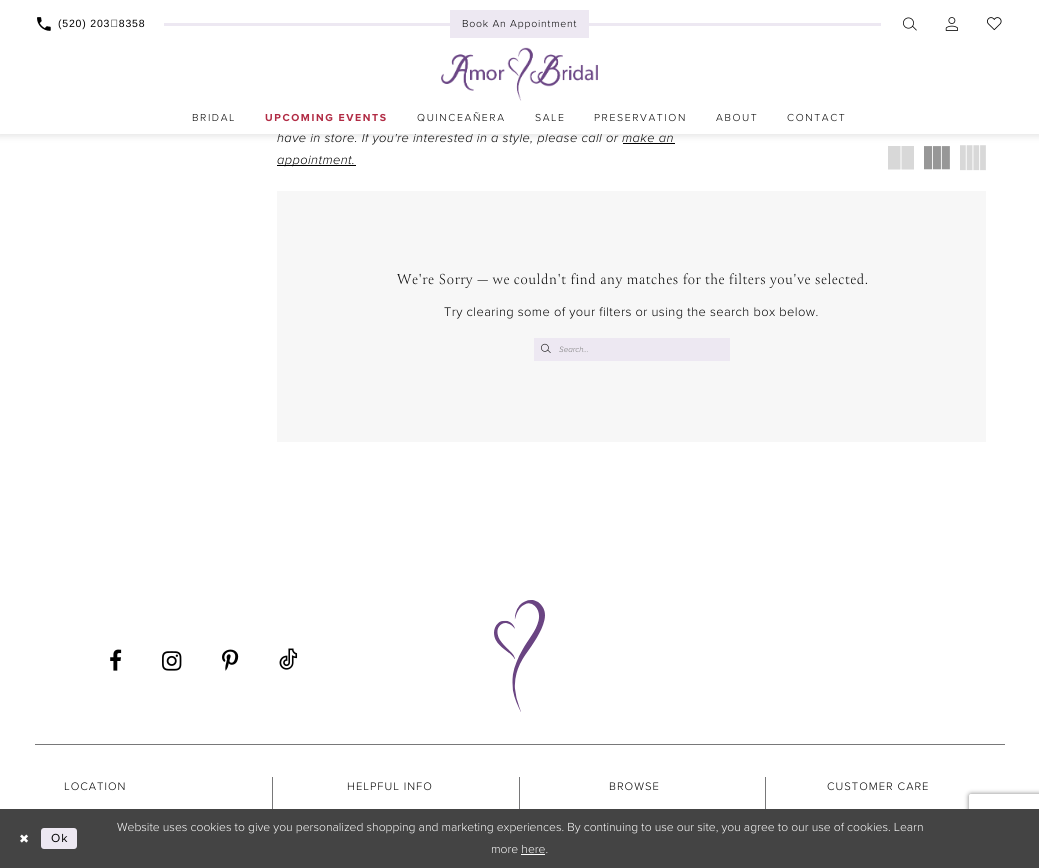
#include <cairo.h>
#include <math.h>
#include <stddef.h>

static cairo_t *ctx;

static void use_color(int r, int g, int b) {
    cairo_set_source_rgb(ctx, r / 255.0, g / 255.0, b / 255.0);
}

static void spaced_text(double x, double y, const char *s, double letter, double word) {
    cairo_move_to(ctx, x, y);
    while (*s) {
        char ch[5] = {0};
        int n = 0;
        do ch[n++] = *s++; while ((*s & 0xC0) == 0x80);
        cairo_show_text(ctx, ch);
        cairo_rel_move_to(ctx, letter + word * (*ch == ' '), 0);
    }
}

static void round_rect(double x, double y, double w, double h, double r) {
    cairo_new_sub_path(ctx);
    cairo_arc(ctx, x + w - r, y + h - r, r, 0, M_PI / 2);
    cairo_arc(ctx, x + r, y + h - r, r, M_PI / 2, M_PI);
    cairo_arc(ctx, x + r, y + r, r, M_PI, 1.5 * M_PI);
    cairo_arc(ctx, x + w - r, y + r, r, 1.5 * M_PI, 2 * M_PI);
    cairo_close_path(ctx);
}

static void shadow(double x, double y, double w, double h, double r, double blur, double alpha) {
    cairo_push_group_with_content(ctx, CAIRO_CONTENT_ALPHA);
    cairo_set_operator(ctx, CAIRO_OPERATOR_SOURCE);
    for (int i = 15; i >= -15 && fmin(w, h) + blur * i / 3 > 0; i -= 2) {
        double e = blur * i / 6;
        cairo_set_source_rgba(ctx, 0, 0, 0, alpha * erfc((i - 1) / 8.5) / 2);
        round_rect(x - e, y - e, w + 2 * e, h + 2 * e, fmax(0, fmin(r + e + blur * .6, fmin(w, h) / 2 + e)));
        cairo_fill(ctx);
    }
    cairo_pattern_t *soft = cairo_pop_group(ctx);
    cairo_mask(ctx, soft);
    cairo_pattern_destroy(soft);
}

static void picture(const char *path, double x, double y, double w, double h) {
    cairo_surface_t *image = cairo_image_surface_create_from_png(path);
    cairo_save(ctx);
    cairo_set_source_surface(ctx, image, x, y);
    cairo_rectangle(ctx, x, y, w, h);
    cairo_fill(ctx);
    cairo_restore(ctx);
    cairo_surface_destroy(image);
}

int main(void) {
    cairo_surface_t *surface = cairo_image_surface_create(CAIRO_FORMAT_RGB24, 1039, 868);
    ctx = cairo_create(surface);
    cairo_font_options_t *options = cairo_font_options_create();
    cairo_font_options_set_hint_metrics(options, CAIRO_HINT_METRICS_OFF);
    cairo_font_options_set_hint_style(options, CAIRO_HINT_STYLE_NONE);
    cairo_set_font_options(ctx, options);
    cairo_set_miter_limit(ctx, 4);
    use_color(255, 255, 255);
    cairo_paint(ctx);
    use_color(0, 0, 0);
    cairo_rectangle(ctx, 623, 143, 52, 1);
    cairo_fill(ctx);
    use_color(216, 216, 216);
    cairo_new_path(ctx);
    cairo_move_to(ctx, 888, 146);
    cairo_line_to(ctx, 900.5, 146);
    cairo_line_to(ctx, 900.5, 169.5);
    cairo_line_to(ctx, 888, 169.5);
    cairo_close_path(ctx);
    cairo_move_to(ctx, 901.5, 146);
    cairo_line_to(ctx, 914, 146);
    cairo_line_to(ctx, 914, 169.5);
    cairo_line_to(ctx, 901.5, 169.5);
    cairo_close_path(ctx);
    cairo_fill(ctx);
    picture("img6.png", 924, 146, 26, 24);
    picture("img7.png", 960, 145, 26, 26);
    use_color(30, 30, 30);
    shadow(-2, -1, 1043, 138, 0, 3, 0.1);
    cairo_select_font_face(ctx, "Proxima Nova Light", CAIRO_FONT_SLANT_ITALIC, CAIRO_FONT_WEIGHT_NORMAL);
    cairo_set_font_size(ctx, 12.9);
    use_color(0, 0, 0);
    spaced_text(277, 142, "have in store. If you're interested in a style, please call or make an", 0.4, 0);
    use_color(255, 255, 255);
    cairo_rectangle(ctx, 0, 0, 1039, 134);
    cairo_fill(ctx);
    picture("img1.png", 37, 17, 14, 14);
    cairo_select_font_face(ctx, "Liberation Sans", CAIRO_FONT_SLANT_NORMAL, CAIRO_FONT_WEIGHT_NORMAL);
    cairo_set_font_size(ctx, 10.5);
    use_color(0, 0, 0);
    spaced_text(58, 27, "(520) 203‑8358", 0.8, 0);
    use_color(237, 232, 242);
    cairo_rectangle(ctx, 164, 23, 717, 3);
    cairo_fill(ctx);
    cairo_rectangle(ctx, 450, 10, 139, 28);
    cairo_fill(ctx);
    cairo_select_font_face(ctx, "Proxima Nova Light", CAIRO_FONT_SLANT_NORMAL, CAIRO_FONT_WEIGHT_NORMAL);
    use_color(0, 0, 0);
    spaced_text(462, 27, "Book An Appointment", 0.8, 0);
    picture("img2.png", 903, 17, 14, 14);
    picture("img3.png", 945, 17, 13, 14);
    picture("img4.png", 987, 17, 15, 14);
    picture("img5.png", 441, 47, 157, 54);
    spaced_text(192, 121, "BRIDAL", 1.6, 0);
    cairo_select_font_face(ctx, "Proxima Nova", CAIRO_FONT_SLANT_NORMAL, CAIRO_FONT_WEIGHT_BOLD);
    use_color(177, 43, 68);
    spaced_text(265, 121, "UPCOMING EVENTS", 1.6, 0);
    cairo_select_font_face(ctx, "Proxima Nova Light", CAIRO_FONT_SLANT_NORMAL, CAIRO_FONT_WEIGHT_NORMAL);
    use_color(0, 0, 0);
    spaced_text(417, 121, "QUINCEAÑERA", 1.6, 0);
    spaced_text(535, 121, "SALE", 1.6, 0);
    spaced_text(594, 121, "PRESERVATION", 1.6, 0);
    spaced_text(716, 121, "ABOUT", 1.6, 0);
    spaced_text(787, 121, "CONTACT", 1.6, 0);
    cairo_rectangle(ctx, 277, 165, 79, 1);
    cairo_fill(ctx);
    cairo_select_font_face(ctx, "Proxima Nova Light", CAIRO_FONT_SLANT_ITALIC, CAIRO_FONT_WEIGHT_NORMAL);
    cairo_set_font_size(ctx, 12.9);
    spaced_text(277, 164, "appointment.", 0.4, 0);
    use_color(247, 247, 247);
    cairo_rectangle(ctx, 277, 191, 709, 251);
    cairo_fill(ctx);
    cairo_select_font_face(ctx, "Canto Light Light", CAIRO_FONT_SLANT_NORMAL, CAIRO_FONT_WEIGHT_NORMAL);
    cairo_set_font_size(ctx, 16.2);
    use_color(0, 0, 0);
    spaced_text(397, 284, "We're Sorry — we couldn't find any matches for the filters you've selected.", 0.57, 0);
    cairo_select_font_face(ctx, "Proxima Nova Light", CAIRO_FONT_SLANT_NORMAL, CAIRO_FONT_WEIGHT_NORMAL);
    cairo_set_font_size(ctx, 12.9);
    spaced_text(444, 316, "Try clearing some of your filters or using the search box below.", 0.4, 0);
    use_color(237, 232, 242);
    cairo_rectangle(ctx, 534, 338, 196, 23);
    cairo_fill(ctx);
    picture("img8.png", 541, 343, 10, 10);
    cairo_select_font_face(ctx, "Proxima Nova Light", CAIRO_FONT_SLANT_ITALIC, CAIRO_FONT_WEIGHT_NORMAL);
    cairo_set_font_size(ctx, 8);
    use_color(117, 117, 117);
    cairo_move_to(ctx, 559, 352);
    cairo_show_text(ctx, "Search...");
    picture("img9.png", 110, 649, 12, 22);
    picture("img10.png", 162, 651, 20, 20);
    picture("img11.png", 222, 649, 17, 22);
    picture("img12.png", 279, 648, 19, 22);
    picture("img13.png", 494, 600, 51, 112);
    use_color(120, 120, 121);
    cairo_rectangle(ctx, 35, 744, 970, 1);
    cairo_fill(ctx);
    cairo_select_font_face(ctx, "Proxima Nova Light", CAIRO_FONT_SLANT_NORMAL, CAIRO_FONT_WEIGHT_NORMAL);
    cairo_set_font_size(ctx, 11.25);
    use_color(0, 0, 0);
    spaced_text(64, 790, "LOCATION", 1, 0);
    use_color(120, 120, 121);
    cairo_rectangle(ctx, 272, 777, 1, 32);
    cairo_fill(ctx);
    use_color(0, 0, 0);
    spaced_text(347, 790, "HELPFUL INFO", 1, 0);
    use_color(120, 120, 121);
    cairo_rectangle(ctx, 519, 777, 1, 32);
    cairo_fill(ctx);
    use_color(0, 0, 0);
    spaced_text(609, 790, "BROWSE", 1, 0);
    use_color(120, 120, 121);
    cairo_rectangle(ctx, 765, 777, 1, 32);
    cairo_fill(ctx);
    use_color(0, 0, 0);
    spaced_text(827, 790, "CUSTOMER CARE", 1, 0);
    cairo_save(ctx);
    cairo_set_fill_rule(ctx, CAIRO_FILL_RULE_EVEN_ODD);
    cairo_new_path(ctx);
    cairo_move_to(ctx, 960, 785);
    cairo_line_to(ctx, 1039, 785);
    cairo_line_to(ctx, 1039, 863);
    cairo_line_to(ctx, 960, 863);
    cairo_close_path(ctx);
    cairo_move_to(ctx, 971, 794);
    cairo_line_to(ctx, 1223, 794);
    cairo_curve_to(ctx, 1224, 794, 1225, 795, 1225, 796);
    cairo_line_to(ctx, 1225, 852);
    cairo_curve_to(ctx, 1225, 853, 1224, 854, 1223, 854);
    cairo_line_to(ctx, 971, 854);
    cairo_curve_to(ctx, 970, 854, 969, 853, 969, 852);
    cairo_line_to(ctx, 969, 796);
    cairo_curve_to(ctx, 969, 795, 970, 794, 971, 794);
    cairo_close_path(ctx);
    cairo_clip(ctx);
    use_color(128, 128, 128);
    shadow(969, 794, 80, 60, 2, 2.5, 1);
    cairo_restore(ctx);
    use_color(68, 68, 68);
    cairo_rectangle(ctx, 0, 809, 1039, 59);
    cairo_fill(ctx);
    cairo_select_font_face(ctx, "DejaVu Sans", CAIRO_FONT_SLANT_NORMAL, CAIRO_FONT_WEIGHT_NORMAL);
    cairo_set_font_size(ctx, 12.12);
    use_color(255, 255, 255);
    spaced_text(19, 843, "✖", 1, 0);
    use_color(237, 232, 242);
    round_rect(41, 828, 36, 21, 3);
    cairo_fill(ctx);
    cairo_select_font_face(ctx, "Proxima Nova", CAIRO_FONT_SLANT_NORMAL, CAIRO_FONT_WEIGHT_NORMAL);
    use_color(0, 0, 0);
    spaced_text(51, 842, "Ok", 1, 0);
    cairo_select_font_face(ctx, "Proxima Nova Light", CAIRO_FONT_SLANT_NORMAL, CAIRO_FONT_WEIGHT_NORMAL);
    use_color(255, 255, 255);
    cairo_move_to(ctx, 117, 831);
    cairo_show_text(ctx, "Website uses cookies to give you personalized shopping and marketing experiences. By continuing to use our site, you agree to our use of cookies. Learn");
    cairo_move_to(ctx, 491, 853);
    cairo_show_text(ctx, "more here.");
    cairo_rectangle(ctx, 521, 854, 24, 1);
    cairo_fill(ctx);
    cairo_surface_write_to_png(surface, "result.png");
    cairo_font_options_destroy(options);
    cairo_destroy(ctx);
    cairo_surface_destroy(surface);
    return 0;
}
